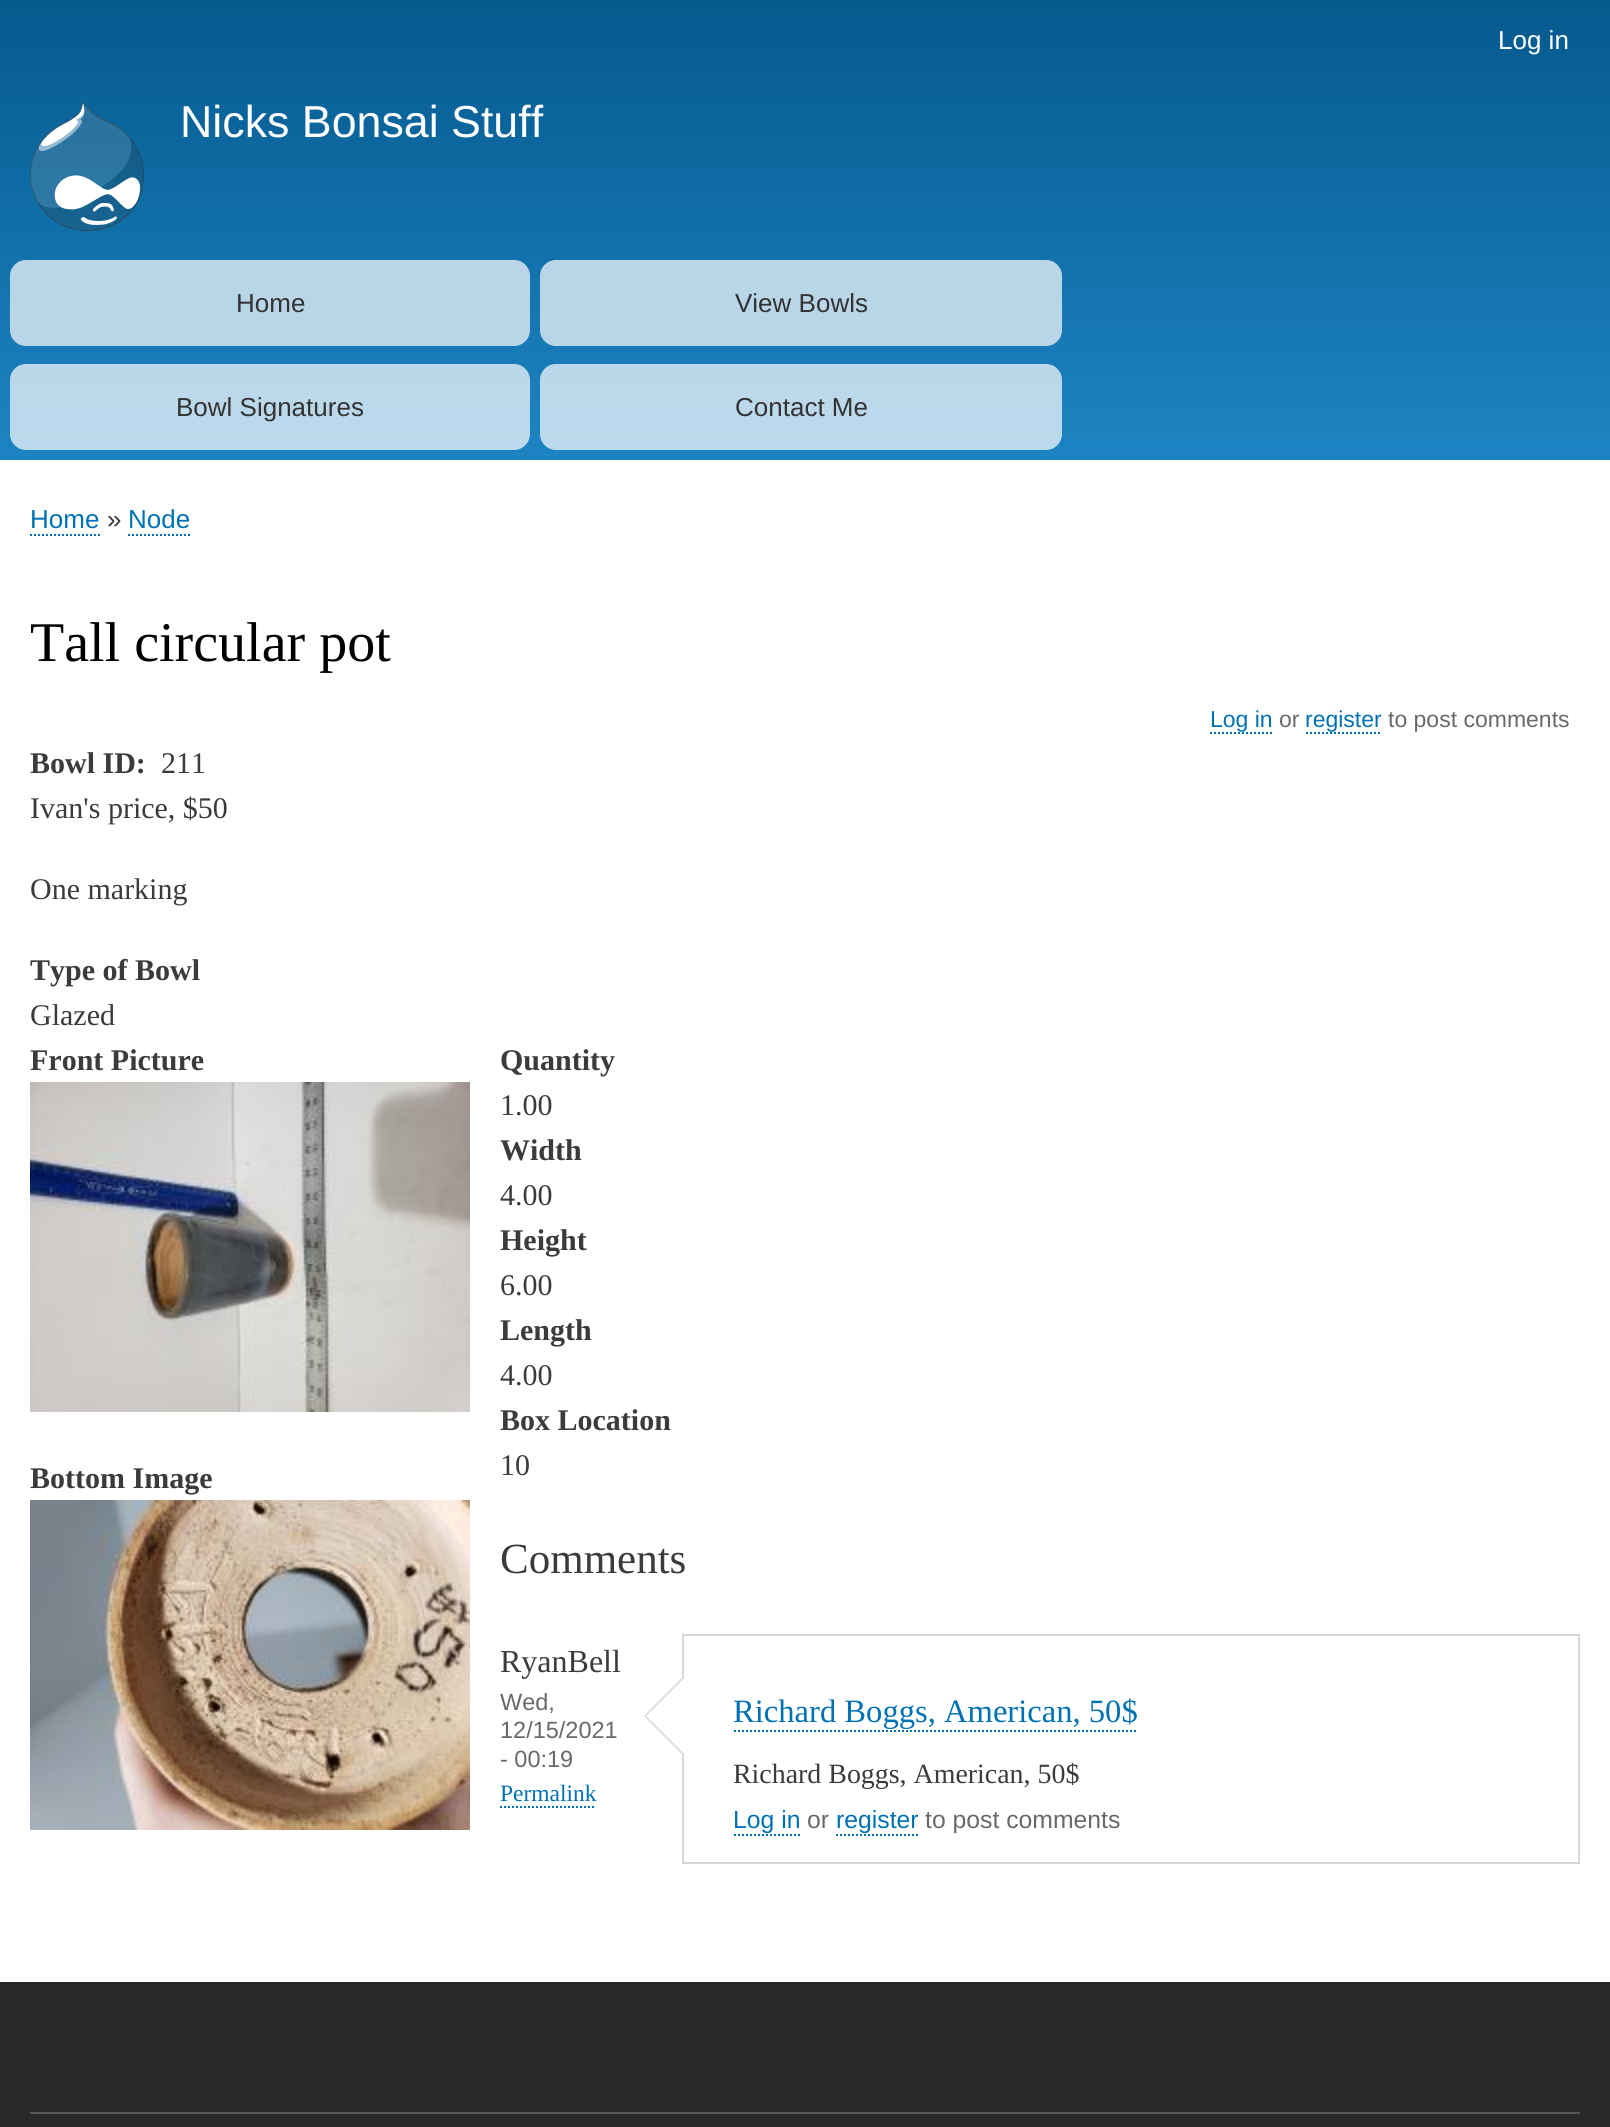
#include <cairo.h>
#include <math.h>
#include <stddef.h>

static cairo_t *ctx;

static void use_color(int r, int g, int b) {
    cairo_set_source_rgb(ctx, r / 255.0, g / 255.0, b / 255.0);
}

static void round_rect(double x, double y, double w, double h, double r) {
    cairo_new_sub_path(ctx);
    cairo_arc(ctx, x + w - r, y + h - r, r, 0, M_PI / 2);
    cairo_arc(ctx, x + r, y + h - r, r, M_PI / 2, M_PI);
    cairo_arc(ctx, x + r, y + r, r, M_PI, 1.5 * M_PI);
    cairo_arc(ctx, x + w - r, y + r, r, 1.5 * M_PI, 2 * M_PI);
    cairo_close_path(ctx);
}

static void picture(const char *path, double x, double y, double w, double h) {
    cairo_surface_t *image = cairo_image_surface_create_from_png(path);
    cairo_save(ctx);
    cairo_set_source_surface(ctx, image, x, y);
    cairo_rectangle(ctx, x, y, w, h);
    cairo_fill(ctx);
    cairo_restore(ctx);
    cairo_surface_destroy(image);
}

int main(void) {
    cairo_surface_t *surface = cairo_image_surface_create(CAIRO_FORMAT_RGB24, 1610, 2127);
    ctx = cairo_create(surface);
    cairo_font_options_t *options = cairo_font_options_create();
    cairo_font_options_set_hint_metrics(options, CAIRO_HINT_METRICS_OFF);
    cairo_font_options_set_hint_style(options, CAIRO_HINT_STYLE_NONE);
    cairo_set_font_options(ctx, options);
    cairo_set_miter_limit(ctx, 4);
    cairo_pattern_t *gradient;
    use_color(255, 255, 255);
    cairo_paint(ctx);
    gradient = cairo_pattern_create_linear(805, 0, 805, 460);
    cairo_pattern_add_color_stop_rgba(gradient, 0, 0.02, 0.353, 0.557, 1);
    cairo_pattern_add_color_stop_rgba(gradient, 1, 0.114, 0.518, 0.765, 1);
    cairo_set_source(ctx, gradient);
    cairo_pattern_destroy(gradient);
    cairo_rectangle(ctx, 0, 0, 1610, 460);
    cairo_fill(ctx);
    cairo_select_font_face(ctx, "Liberation Sans", CAIRO_FONT_SLANT_NORMAL, CAIRO_FONT_WEIGHT_NORMAL);
    cairo_set_font_size(ctx, 26);
    use_color(255, 254, 255);
    cairo_move_to(ctx, 1498, 49);
    cairo_show_text(ctx, "Log in");
    picture("img1.png", 30, 101, 114, 131);
    cairo_set_font_size(ctx, 44.75);
    cairo_move_to(ctx, 180, 137);
    cairo_show_text(ctx, "Nicks Bonsai Stuff");
    cairo_set_source_rgba(ctx, 1, 1, 1, 0.7);
    round_rect(10, 260, 520, 86, 16);
    cairo_fill(ctx);
    cairo_set_font_size(ctx, 26);
    use_color(51, 51, 51);
    cairo_move_to(ctx, 236, 312);
    cairo_show_text(ctx, "Home");
    cairo_set_source_rgba(ctx, 1, 1, 1, 0.7);
    round_rect(540, 260, 522, 86, 16);
    cairo_fill(ctx);
    use_color(51, 51, 51);
    cairo_move_to(ctx, 735, 312);
    cairo_show_text(ctx, "View Bowls");
    cairo_set_source_rgba(ctx, 1, 1, 1, 0.7);
    round_rect(10, 364, 520, 86, 16);
    cairo_fill(ctx);
    use_color(51, 51, 51);
    cairo_move_to(ctx, 176, 416);
    cairo_show_text(ctx, "Bowl Signatures");
    cairo_set_source_rgba(ctx, 1, 1, 1, 0.7);
    round_rect(540, 364, 522, 86, 16);
    cairo_fill(ctx);
    use_color(51, 51, 51);
    cairo_move_to(ctx, 735, 416);
    cairo_show_text(ctx, "Contact Me");
    use_color(0, 113, 179);
    cairo_move_to(ctx, 30, 528);
    cairo_show_text(ctx, "Home");
    cairo_new_path(ctx);
    cairo_move_to(ctx, 30, 535);
    cairo_line_to(ctx, 100, 535);
    cairo_set_dash(ctx, (double[]){2, 2}, 2, 0);
    cairo_stroke(ctx);
    use_color(59, 59, 59);
    cairo_move_to(ctx, 107, 528);
    cairo_show_text(ctx, "»");
    use_color(0, 113, 179);
    cairo_move_to(ctx, 128, 528);
    cairo_show_text(ctx, "Node");
    cairo_new_path(ctx);
    cairo_move_to(ctx, 128, 535);
    cairo_line_to(ctx, 190, 535);
    cairo_stroke(ctx);
    cairo_select_font_face(ctx, "Liberation Serif", CAIRO_FONT_SLANT_NORMAL, CAIRO_FONT_WEIGHT_NORMAL);
    cairo_set_font_size(ctx, 56);
    use_color(0, 0, 0);
    cairo_move_to(ctx, 30, 661);
    cairo_show_text(ctx, "Tall circular pot");
    cairo_select_font_face(ctx, "Liberation Sans", CAIRO_FONT_SLANT_NORMAL, CAIRO_FONT_WEIGHT_NORMAL);
    cairo_set_font_size(ctx, 23);
    use_color(0, 113, 179);
    cairo_move_to(ctx, 1210, 727);
    cairo_show_text(ctx, "Log in");
    cairo_new_path(ctx);
    cairo_move_to(ctx, 1210, 733);
    cairo_line_to(ctx, 1272, 733);
    cairo_stroke(ctx);
    use_color(104, 105, 107);
    cairo_move_to(ctx, 1279, 727);
    cairo_show_text(ctx, "or");
    use_color(0, 113, 179);
    cairo_move_to(ctx, 1305, 727);
    cairo_show_text(ctx, "register");
    cairo_new_path(ctx);
    cairo_move_to(ctx, 1306, 733);
    cairo_line_to(ctx, 1382, 733);
    cairo_stroke(ctx);
    use_color(104, 105, 107);
    cairo_move_to(ctx, 1388, 727);
    cairo_show_text(ctx, "to post comments");
    cairo_select_font_face(ctx, "Liberation Serif", CAIRO_FONT_SLANT_NORMAL, CAIRO_FONT_WEIGHT_BOLD);
    cairo_set_font_size(ctx, 30);
    use_color(59, 59, 59);
    cairo_move_to(ctx, 30, 773);
    cairo_show_text(ctx, "Bowl ID:");
    cairo_select_font_face(ctx, "Liberation Serif", CAIRO_FONT_SLANT_NORMAL, CAIRO_FONT_WEIGHT_NORMAL);
    cairo_move_to(ctx, 161, 773);
    cairo_show_text(ctx, "211");
    cairo_move_to(ctx, 30, 818);
    cairo_show_text(ctx, "Ivan's price, $50");
    cairo_move_to(ctx, 30, 899);
    cairo_show_text(ctx, "One marking");
    cairo_select_font_face(ctx, "Liberation Serif", CAIRO_FONT_SLANT_NORMAL, CAIRO_FONT_WEIGHT_BOLD);
    cairo_move_to(ctx, 30, 980);
    cairo_show_text(ctx, "Type of Bowl");
    cairo_select_font_face(ctx, "Liberation Serif", CAIRO_FONT_SLANT_NORMAL, CAIRO_FONT_WEIGHT_NORMAL);
    cairo_move_to(ctx, 30, 1025);
    cairo_show_text(ctx, "Glazed");
    cairo_select_font_face(ctx, "Liberation Serif", CAIRO_FONT_SLANT_NORMAL, CAIRO_FONT_WEIGHT_BOLD);
    cairo_move_to(ctx, 30, 1070);
    cairo_show_text(ctx, "Front Picture");
    picture("img2.png", 30, 1082, 440, 330);
    cairo_move_to(ctx, 500, 1070);
    cairo_show_text(ctx, "Quantity");
    cairo_select_font_face(ctx, "Liberation Serif", CAIRO_FONT_SLANT_NORMAL, CAIRO_FONT_WEIGHT_NORMAL);
    cairo_move_to(ctx, 500, 1115);
    cairo_show_text(ctx, "1.00");
    cairo_select_font_face(ctx, "Liberation Serif", CAIRO_FONT_SLANT_NORMAL, CAIRO_FONT_WEIGHT_BOLD);
    cairo_move_to(ctx, 500, 1160);
    cairo_show_text(ctx, "Width");
    cairo_select_font_face(ctx, "Liberation Serif", CAIRO_FONT_SLANT_NORMAL, CAIRO_FONT_WEIGHT_NORMAL);
    cairo_move_to(ctx, 500, 1205);
    cairo_show_text(ctx, "4.00");
    cairo_select_font_face(ctx, "Liberation Serif", CAIRO_FONT_SLANT_NORMAL, CAIRO_FONT_WEIGHT_BOLD);
    cairo_move_to(ctx, 500, 1250);
    cairo_show_text(ctx, "Height");
    cairo_select_font_face(ctx, "Liberation Serif", CAIRO_FONT_SLANT_NORMAL, CAIRO_FONT_WEIGHT_NORMAL);
    cairo_move_to(ctx, 500, 1295);
    cairo_show_text(ctx, "6.00");
    cairo_select_font_face(ctx, "Liberation Serif", CAIRO_FONT_SLANT_NORMAL, CAIRO_FONT_WEIGHT_BOLD);
    cairo_move_to(ctx, 500, 1340);
    cairo_show_text(ctx, "Length");
    cairo_select_font_face(ctx, "Liberation Serif", CAIRO_FONT_SLANT_NORMAL, CAIRO_FONT_WEIGHT_NORMAL);
    cairo_move_to(ctx, 500, 1385);
    cairo_show_text(ctx, "4.00");
    cairo_select_font_face(ctx, "Liberation Serif", CAIRO_FONT_SLANT_NORMAL, CAIRO_FONT_WEIGHT_BOLD);
    cairo_move_to(ctx, 500, 1430);
    cairo_show_text(ctx, "Box Location");
    cairo_select_font_face(ctx, "Liberation Serif", CAIRO_FONT_SLANT_NORMAL, CAIRO_FONT_WEIGHT_NORMAL);
    cairo_move_to(ctx, 500, 1475);
    cairo_show_text(ctx, "10");
    cairo_select_font_face(ctx, "Liberation Serif", CAIRO_FONT_SLANT_NORMAL, CAIRO_FONT_WEIGHT_BOLD);
    cairo_move_to(ctx, 30, 1488);
    cairo_show_text(ctx, "Bottom Image");
    picture("img3.png", 30, 1500, 440, 330);
    cairo_select_font_face(ctx, "Liberation Serif", CAIRO_FONT_SLANT_NORMAL, CAIRO_FONT_WEIGHT_NORMAL);
    cairo_set_font_size(ctx, 43);
    cairo_move_to(ctx, 500, 1573);
    cairo_show_text(ctx, "Comments");
    cairo_set_font_size(ctx, 32);
    cairo_move_to(ctx, 500, 1672);
    cairo_show_text(ctx, "RyanBell");
    cairo_select_font_face(ctx, "Liberation Sans", CAIRO_FONT_SLANT_NORMAL, CAIRO_FONT_WEIGHT_NORMAL);
    cairo_set_font_size(ctx, 23.5);
    use_color(104, 105, 107);
    cairo_move_to(ctx, 500, 1710);
    cairo_show_text(ctx, "Wed,");
    cairo_move_to(ctx, 500, 1738);
    cairo_show_text(ctx, "12/15/2021");
    cairo_move_to(ctx, 500, 1767);
    cairo_show_text(ctx, "- 00:19");
    cairo_select_font_face(ctx, "Liberation Serif", CAIRO_FONT_SLANT_NORMAL, CAIRO_FONT_WEIGHT_NORMAL);
    use_color(0, 113, 179);
    cairo_move_to(ctx, 500, 1801);
    cairo_show_text(ctx, "Permalink");
    cairo_new_path(ctx);
    cairo_move_to(ctx, 500, 1807);
    cairo_line_to(ctx, 596, 1807);
    cairo_stroke(ctx);
    cairo_rectangle(ctx, 683, 1635, 896, 228);
    use_color(211, 215, 217);
    cairo_set_dash(ctx, NULL, 0, 0);
    cairo_stroke(ctx);
    cairo_new_path(ctx);
    cairo_move_to(ctx, 684, 1676);
    cairo_line_to(ctx, 684, 1756);
    cairo_line_to(ctx, 644, 1716);
    cairo_close_path(ctx);
    cairo_fill(ctx);
    use_color(255, 255, 255);
    cairo_new_path(ctx);
    cairo_move_to(ctx, 686, 1676);
    cairo_line_to(ctx, 686, 1756);
    cairo_line_to(ctx, 646, 1716);
    cairo_close_path(ctx);
    cairo_fill(ctx);
    cairo_set_font_size(ctx, 32.6);
    use_color(0, 113, 179);
    cairo_move_to(ctx, 733, 1722);
    cairo_show_text(ctx, "Richard Boggs, American, 50$");
    cairo_new_path(ctx);
    cairo_move_to(ctx, 734, 1731);
    cairo_line_to(ctx, 1138, 1731);
    cairo_set_dash(ctx, (double[]){2, 2}, 2, 0);
    cairo_stroke(ctx);
    cairo_set_font_size(ctx, 27.9);
    use_color(59, 59, 59);
    cairo_move_to(ctx, 733, 1783);
    cairo_show_text(ctx, "Richard Boggs, American, 50$");
    cairo_select_font_face(ctx, "Liberation Sans", CAIRO_FONT_SLANT_NORMAL, CAIRO_FONT_WEIGHT_NORMAL);
    cairo_set_font_size(ctx, 24.75);
    use_color(0, 113, 179);
    cairo_move_to(ctx, 733, 1828);
    cairo_show_text(ctx, "Log in");
    cairo_new_path(ctx);
    cairo_move_to(ctx, 734, 1835);
    cairo_line_to(ctx, 800, 1835);
    cairo_stroke(ctx);
    use_color(104, 105, 107);
    cairo_move_to(ctx, 807, 1828);
    cairo_show_text(ctx, "or");
    use_color(0, 113, 179);
    cairo_move_to(ctx, 836, 1828);
    cairo_show_text(ctx, "register");
    cairo_new_path(ctx);
    cairo_move_to(ctx, 836, 1835);
    cairo_line_to(ctx, 918, 1835);
    cairo_stroke(ctx);
    use_color(104, 105, 107);
    cairo_move_to(ctx, 925, 1828);
    cairo_show_text(ctx, "to post comments");
    use_color(41, 41, 41);
    cairo_rectangle(ctx, 0, 1982, 1610, 145);
    cairo_fill(ctx);
    use_color(85, 85, 85);
    cairo_rectangle(ctx, 30, 2112, 1550, 2);
    cairo_fill(ctx);
    cairo_surface_write_to_png(surface, "result.png");
    cairo_font_options_destroy(options);
    cairo_destroy(ctx);
    cairo_surface_destroy(surface);
    return 0;
}
